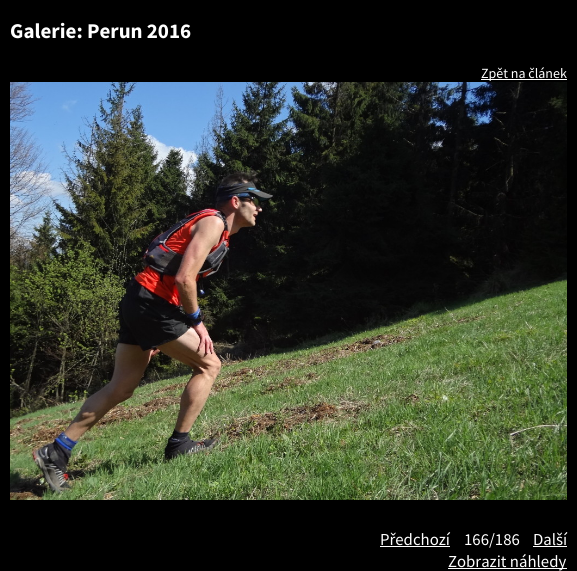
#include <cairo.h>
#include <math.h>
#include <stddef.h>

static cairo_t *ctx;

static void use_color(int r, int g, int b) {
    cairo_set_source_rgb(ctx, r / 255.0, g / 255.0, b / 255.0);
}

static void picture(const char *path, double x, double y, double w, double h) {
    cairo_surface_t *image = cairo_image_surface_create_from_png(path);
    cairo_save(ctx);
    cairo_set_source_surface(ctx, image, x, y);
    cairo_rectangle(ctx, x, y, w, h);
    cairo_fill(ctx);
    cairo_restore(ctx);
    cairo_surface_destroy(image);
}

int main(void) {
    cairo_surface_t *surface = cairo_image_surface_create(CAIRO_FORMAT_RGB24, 577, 571);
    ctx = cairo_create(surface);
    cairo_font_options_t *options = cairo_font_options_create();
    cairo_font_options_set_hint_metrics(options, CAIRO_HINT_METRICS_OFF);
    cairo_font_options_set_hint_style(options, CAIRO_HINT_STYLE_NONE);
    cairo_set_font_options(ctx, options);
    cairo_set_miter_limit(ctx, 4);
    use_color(0, 0, 0);
    cairo_paint(ctx);
    cairo_select_font_face(ctx, "Source Sans Pro", CAIRO_FONT_SLANT_NORMAL, CAIRO_FONT_WEIGHT_BOLD);
    cairo_set_font_size(ctx, 21);
    use_color(255, 255, 255);
    cairo_move_to(ctx, 10, 38);
    cairo_show_text(ctx, "Galerie: Perun 2016");
    cairo_rectangle(ctx, 481, 79, 86, 1);
    cairo_fill(ctx);
    cairo_select_font_face(ctx, "Source Sans Pro", CAIRO_FONT_SLANT_NORMAL, CAIRO_FONT_WEIGHT_NORMAL);
    cairo_set_font_size(ctx, 14);
    cairo_move_to(ctx, 481, 78);
    cairo_show_text(ctx, "Zpět na článek");
    picture("img1.png", 10, 82, 557, 418);
    cairo_set_font_size(ctx, 16.75);
    cairo_move_to(ctx, 380, 545);
    cairo_show_text(ctx, "Předchozí");
    cairo_rectangle(ctx, 380, 546, 70, 1);
    cairo_fill(ctx);
    cairo_move_to(ctx, 464, 545);
    cairo_show_text(ctx, "166/186");
    cairo_move_to(ctx, 533, 545);
    cairo_show_text(ctx, "Další");
    cairo_rectangle(ctx, 533, 546, 34, 1);
    cairo_fill(ctx);
    cairo_rectangle(ctx, 448, 568, 119, 1);
    cairo_fill(ctx);
    cairo_move_to(ctx, 448, 567);
    cairo_show_text(ctx, "Zobrazit náhledy");
    cairo_surface_write_to_png(surface, "result.png");
    cairo_font_options_destroy(options);
    cairo_destroy(ctx);
    cairo_surface_destroy(surface);
    return 0;
}
